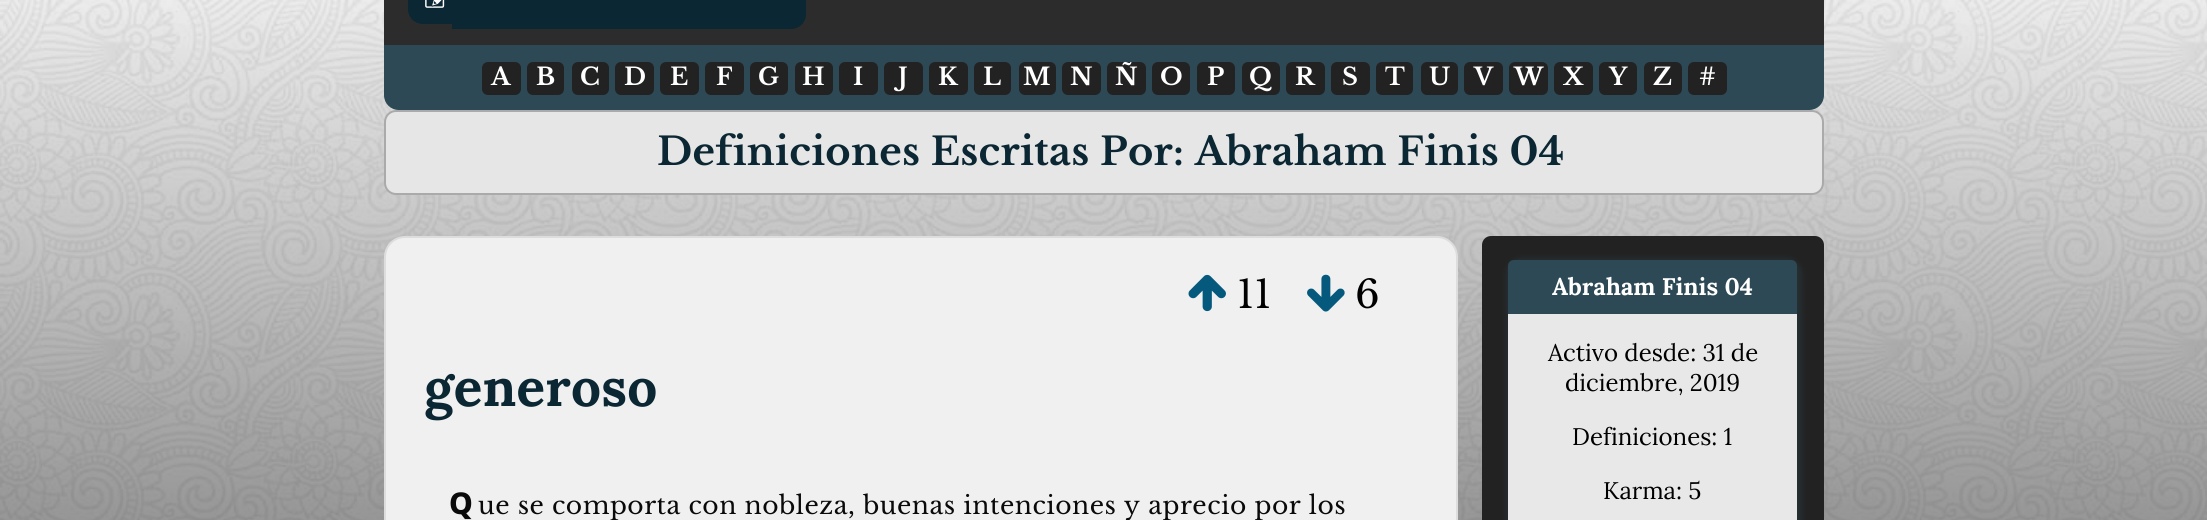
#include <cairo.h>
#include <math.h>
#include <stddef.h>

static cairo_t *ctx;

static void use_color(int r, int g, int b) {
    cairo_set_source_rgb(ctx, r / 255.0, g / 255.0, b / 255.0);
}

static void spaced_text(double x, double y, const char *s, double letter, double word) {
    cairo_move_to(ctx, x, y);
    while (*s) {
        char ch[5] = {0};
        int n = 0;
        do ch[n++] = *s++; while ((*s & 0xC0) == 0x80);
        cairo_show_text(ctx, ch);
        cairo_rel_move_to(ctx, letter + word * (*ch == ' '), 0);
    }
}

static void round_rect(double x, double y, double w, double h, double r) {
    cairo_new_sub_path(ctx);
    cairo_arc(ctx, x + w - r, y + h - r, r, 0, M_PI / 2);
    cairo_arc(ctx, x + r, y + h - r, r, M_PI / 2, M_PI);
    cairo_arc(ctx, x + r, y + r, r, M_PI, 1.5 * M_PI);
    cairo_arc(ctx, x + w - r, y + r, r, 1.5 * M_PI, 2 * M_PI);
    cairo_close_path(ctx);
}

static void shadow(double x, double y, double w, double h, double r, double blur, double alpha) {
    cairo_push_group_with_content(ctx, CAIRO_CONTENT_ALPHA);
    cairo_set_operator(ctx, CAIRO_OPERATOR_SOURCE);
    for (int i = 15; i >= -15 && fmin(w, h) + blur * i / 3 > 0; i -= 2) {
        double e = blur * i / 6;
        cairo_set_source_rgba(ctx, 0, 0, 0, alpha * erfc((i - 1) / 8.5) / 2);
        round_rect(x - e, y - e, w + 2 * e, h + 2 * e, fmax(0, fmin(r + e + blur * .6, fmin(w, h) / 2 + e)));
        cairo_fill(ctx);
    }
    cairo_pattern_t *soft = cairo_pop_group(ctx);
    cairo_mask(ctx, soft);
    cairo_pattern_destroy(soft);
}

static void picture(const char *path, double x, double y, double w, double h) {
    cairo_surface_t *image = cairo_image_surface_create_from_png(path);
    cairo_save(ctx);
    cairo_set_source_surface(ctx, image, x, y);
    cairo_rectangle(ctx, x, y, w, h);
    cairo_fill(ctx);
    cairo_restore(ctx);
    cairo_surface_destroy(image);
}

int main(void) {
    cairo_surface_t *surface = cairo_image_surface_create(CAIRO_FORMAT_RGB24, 2207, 520);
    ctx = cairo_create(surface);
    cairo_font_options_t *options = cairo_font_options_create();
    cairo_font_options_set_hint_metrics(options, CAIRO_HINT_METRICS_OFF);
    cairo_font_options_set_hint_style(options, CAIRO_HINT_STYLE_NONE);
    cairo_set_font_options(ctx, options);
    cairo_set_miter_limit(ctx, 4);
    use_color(255, 255, 255);
    cairo_paint(ctx);
    picture("img1.png", 0, 0, 2207, 520);
    use_color(44, 44, 44);
    cairo_rectangle(ctx, 384, 0, 1440, 45);
    cairo_fill(ctx);
    use_color(10, 39, 51);
    cairo_new_path(ctx);
    cairo_move_to(ctx, 423, -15);
    cairo_line_to(ctx, 452, -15);
    cairo_line_to(ctx, 452, 24);
    cairo_line_to(ctx, 423, 24);
    cairo_curve_to(ctx, 414.5, 24, 408, 17.5, 408, 9);
    cairo_line_to(ctx, 408, 0);
    cairo_curve_to(ctx, 408, -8.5, 414.5, -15, 423, -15);
    cairo_close_path(ctx);
    cairo_fill(ctx);
    cairo_new_path(ctx);
    cairo_move_to(ctx, 452, -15);
    cairo_line_to(ctx, 791, -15);
    cairo_curve_to(ctx, 799.5, -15, 806, -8.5, 806, 0);
    cairo_line_to(ctx, 806, 14);
    cairo_curve_to(ctx, 806, 22.5, 799.5, 29, 791, 29);
    cairo_line_to(ctx, 452, 29);
    cairo_close_path(ctx);
    cairo_fill(ctx);
    picture("img2.png", 425, 0, 20, 8);
    use_color(44, 73, 85);
    cairo_new_path(ctx);
    cairo_move_to(ctx, 384, 45);
    cairo_line_to(ctx, 1824, 45);
    cairo_line_to(ctx, 1824, 95);
    cairo_curve_to(ctx, 1824, 103.5, 1817.5, 110, 1809, 110);
    cairo_line_to(ctx, 399, 110);
    cairo_curve_to(ctx, 390.5, 110, 384, 103.5, 384, 95);
    cairo_close_path(ctx);
    cairo_fill(ctx);
    use_color(34, 34, 34);
    round_rect(482, 62, 39, 33, 6);
    cairo_fill(ctx);
    cairo_select_font_face(ctx, "Libre Baskerville", CAIRO_FONT_SLANT_NORMAL, CAIRO_FONT_WEIGHT_BOLD);
    cairo_set_font_size(ctx, 24);
    use_color(255, 255, 255);
    cairo_move_to(ctx, 491, 85);
    cairo_show_text(ctx, "A");
    use_color(34, 34, 34);
    round_rect(527, 62, 37, 33, 6);
    cairo_fill(ctx);
    use_color(255, 255, 255);
    cairo_move_to(ctx, 536, 85);
    cairo_show_text(ctx, "B");
    use_color(34, 34, 34);
    round_rect(572, 62, 37, 33, 6);
    cairo_fill(ctx);
    use_color(255, 255, 255);
    cairo_move_to(ctx, 580, 85);
    cairo_show_text(ctx, "C");
    use_color(34, 34, 34);
    round_rect(615, 62, 39, 33, 6);
    cairo_fill(ctx);
    use_color(255, 255, 255);
    cairo_move_to(ctx, 624, 85);
    cairo_show_text(ctx, "D");
    use_color(34, 34, 34);
    round_rect(660, 62, 39, 33, 6);
    cairo_fill(ctx);
    use_color(255, 255, 255);
    cairo_move_to(ctx, 670, 85);
    cairo_show_text(ctx, "E");
    use_color(34, 34, 34);
    round_rect(705, 62, 39, 33, 6);
    cairo_fill(ctx);
    use_color(255, 255, 255);
    cairo_move_to(ctx, 716, 85);
    cairo_show_text(ctx, "F");
    use_color(34, 34, 34);
    round_rect(750, 62, 38, 33, 6);
    cairo_fill(ctx);
    use_color(255, 255, 255);
    cairo_move_to(ctx, 758, 85);
    cairo_show_text(ctx, "G");
    use_color(34, 34, 34);
    round_rect(795, 62, 38, 33, 6);
    cairo_fill(ctx);
    use_color(255, 255, 255);
    cairo_move_to(ctx, 802, 85);
    cairo_show_text(ctx, "H");
    use_color(34, 34, 34);
    round_rect(839, 62, 39, 33, 6);
    cairo_fill(ctx);
    use_color(255, 255, 255);
    cairo_move_to(ctx, 853, 85);
    cairo_show_text(ctx, "I");
    use_color(34, 34, 34);
    round_rect(884, 62, 39, 33, 6);
    cairo_fill(ctx);
    use_color(255, 255, 255);
    cairo_move_to(ctx, 898, 85);
    cairo_show_text(ctx, "J");
    use_color(34, 34, 34);
    round_rect(929, 62, 39, 33, 6);
    cairo_fill(ctx);
    use_color(255, 255, 255);
    cairo_move_to(ctx, 938, 85);
    cairo_show_text(ctx, "K");
    use_color(34, 34, 34);
    round_rect(974, 62, 37, 33, 6);
    cairo_fill(ctx);
    use_color(255, 255, 255);
    cairo_move_to(ctx, 983, 85);
    cairo_show_text(ctx, "L");
    use_color(34, 34, 34);
    round_rect(1019, 62, 37, 33, 6);
    cairo_fill(ctx);
    use_color(255, 255, 255);
    cairo_move_to(ctx, 1023, 85);
    cairo_show_text(ctx, "M");
    use_color(34, 34, 34);
    round_rect(1062, 62, 39, 33, 6);
    cairo_fill(ctx);
    use_color(255, 255, 255);
    cairo_move_to(ctx, 1070, 85);
    cairo_show_text(ctx, "N");
    use_color(34, 34, 34);
    round_rect(1107, 62, 39, 33, 6);
    cairo_fill(ctx);
    use_color(255, 255, 255);
    cairo_move_to(ctx, 1115, 85);
    cairo_show_text(ctx, "Ñ");
    use_color(34, 34, 34);
    round_rect(1152, 62, 38, 33, 6);
    cairo_fill(ctx);
    use_color(255, 255, 255);
    cairo_move_to(ctx, 1160, 85);
    cairo_show_text(ctx, "O");
    use_color(34, 34, 34);
    round_rect(1197, 62, 38, 33, 6);
    cairo_fill(ctx);
    use_color(255, 255, 255);
    cairo_move_to(ctx, 1207, 85);
    cairo_show_text(ctx, "P");
    use_color(34, 34, 34);
    round_rect(1242, 62, 38, 33, 6);
    cairo_fill(ctx);
    use_color(255, 255, 255);
    cairo_move_to(ctx, 1249, 85);
    cairo_show_text(ctx, "Q");
    use_color(34, 34, 34);
    round_rect(1286, 62, 39, 33, 6);
    cairo_fill(ctx);
    use_color(255, 255, 255);
    cairo_move_to(ctx, 1295, 85);
    cairo_show_text(ctx, "R");
    use_color(34, 34, 34);
    round_rect(1331, 62, 39, 33, 6);
    cairo_fill(ctx);
    use_color(255, 255, 255);
    cairo_move_to(ctx, 1342, 85);
    cairo_show_text(ctx, "S");
    use_color(34, 34, 34);
    round_rect(1376, 62, 37, 33, 6);
    cairo_fill(ctx);
    use_color(255, 255, 255);
    cairo_move_to(ctx, 1385, 85);
    cairo_show_text(ctx, "T");
    use_color(34, 34, 34);
    round_rect(1421, 62, 37, 33, 6);
    cairo_fill(ctx);
    use_color(255, 255, 255);
    cairo_move_to(ctx, 1429, 85);
    cairo_show_text(ctx, "U");
    use_color(34, 34, 34);
    round_rect(1464, 62, 39, 33, 6);
    cairo_fill(ctx);
    use_color(255, 255, 255);
    cairo_move_to(ctx, 1474, 85);
    cairo_show_text(ctx, "V");
    use_color(34, 34, 34);
    round_rect(1509, 62, 39, 33, 6);
    cairo_fill(ctx);
    use_color(255, 255, 255);
    cairo_move_to(ctx, 1514, 85);
    cairo_show_text(ctx, "W");
    use_color(34, 34, 34);
    round_rect(1554, 62, 39, 33, 6);
    cairo_fill(ctx);
    use_color(255, 255, 255);
    cairo_move_to(ctx, 1563, 85);
    cairo_show_text(ctx, "X");
    use_color(34, 34, 34);
    round_rect(1599, 62, 38, 33, 6);
    cairo_fill(ctx);
    use_color(255, 255, 255);
    cairo_move_to(ctx, 1609, 85);
    cairo_show_text(ctx, "Y");
    use_color(34, 34, 34);
    round_rect(1644, 62, 38, 33, 6);
    cairo_fill(ctx);
    use_color(255, 255, 255);
    cairo_move_to(ctx, 1653, 85);
    cairo_show_text(ctx, "Z");
    use_color(34, 34, 34);
    round_rect(1688, 62, 39, 33, 6);
    cairo_fill(ctx);
    use_color(255, 255, 255);
    cairo_move_to(ctx, 1699, 85);
    cairo_show_text(ctx, "#");
    use_color(230, 230, 230);
    round_rect(385, 111, 1438, 83, 11);
    cairo_fill_preserve(ctx);
    use_color(170, 170, 170);
    cairo_stroke(ctx);
    cairo_set_font_size(ctx, 38.4);
    use_color(10, 39, 51);
    spaced_text(657, 165, "Definiciones Escritas Por: Abraham Finis 04", 0.3, 0);
    use_color(240, 240, 240);
    round_rect(385, 237, 1072, 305, 20);
    cairo_fill_preserve(ctx);
    use_color(221, 221, 221);
    cairo_stroke(ctx);
    picture("img3.png", 1188, 274, 38, 38);
    cairo_select_font_face(ctx, "Libre Baskerville", CAIRO_FONT_SLANT_NORMAL, CAIRO_FONT_WEIGHT_NORMAL);
    use_color(0, 0, 0);
    cairo_move_to(ctx, 1237, 308);
    cairo_show_text(ctx, "11");
    picture("img4.png", 1307, 274, 38, 38);
    cairo_move_to(ctx, 1355, 308);
    cairo_show_text(ctx, "6");
    cairo_select_font_face(ctx, "Lora", CAIRO_FONT_SLANT_NORMAL, CAIRO_FONT_WEIGHT_BOLD);
    cairo_set_font_size(ctx, 53);
    use_color(10, 39, 51);
    spaced_text(424, 406, "generoso", 0.25, 0);
    cairo_select_font_face(ctx, "Noto Sans ExtraBold", CAIRO_FONT_SLANT_NORMAL, CAIRO_FONT_WEIGHT_NORMAL);
    cairo_set_font_size(ctx, 30);
    use_color(10, 10, 10);
    spaced_text(449, 514, "Q", 0.5, 0);
    cairo_select_font_face(ctx, "Libre Baskerville", CAIRO_FONT_SLANT_NORMAL, CAIRO_FONT_WEIGHT_NORMAL);
    cairo_set_font_size(ctx, 24.95);
    spaced_text(478, 514, "ue se comporta con nobleza, buenas intenciones y aprecio por los", 0.5, 0);
    use_color(34, 34, 34);
    round_rect(1482, 236, 342, 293, 9);
    cairo_fill(ctx);
    use_color(44, 73, 85);
    shadow(1506, 258, 296, 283, 15, 2, 0.3);
    use_color(232, 232, 232);
    round_rect(1508, 260, 289, 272, 12);
    cairo_fill(ctx);
    use_color(44, 73, 85);
    cairo_new_path(ctx);
    cairo_move_to(ctx, 1514, 260);
    cairo_line_to(ctx, 1791, 260);
    cairo_curve_to(ctx, 1794.5, 260, 1797, 262.5, 1797, 266);
    cairo_line_to(ctx, 1797, 314);
    cairo_line_to(ctx, 1508, 314);
    cairo_line_to(ctx, 1508, 266);
    cairo_curve_to(ctx, 1508, 262.5, 1510.5, 260, 1514, 260);
    cairo_close_path(ctx);
    cairo_fill(ctx);
    cairo_select_font_face(ctx, "Lora", CAIRO_FONT_SLANT_NORMAL, CAIRO_FONT_WEIGHT_BOLD);
    cairo_set_font_size(ctx, 24);
    use_color(255, 255, 255);
    cairo_move_to(ctx, 1552, 295);
    cairo_show_text(ctx, "Abraham Finis 04");
    cairo_select_font_face(ctx, "Lora", CAIRO_FONT_SLANT_NORMAL, CAIRO_FONT_WEIGHT_NORMAL);
    use_color(0, 0, 0);
    cairo_move_to(ctx, 1548, 361);
    cairo_show_text(ctx, "Activo desde: 31 de");
    cairo_move_to(ctx, 1565, 391);
    cairo_show_text(ctx, "diciembre, 2019");
    cairo_move_to(ctx, 1572, 445);
    cairo_show_text(ctx, "Definiciones: 1");
    cairo_move_to(ctx, 1603, 499);
    cairo_show_text(ctx, "Karma: 5");
    cairo_surface_write_to_png(surface, "result.png");
    cairo_font_options_destroy(options);
    cairo_destroy(ctx);
    cairo_surface_destroy(surface);
    return 0;
}
